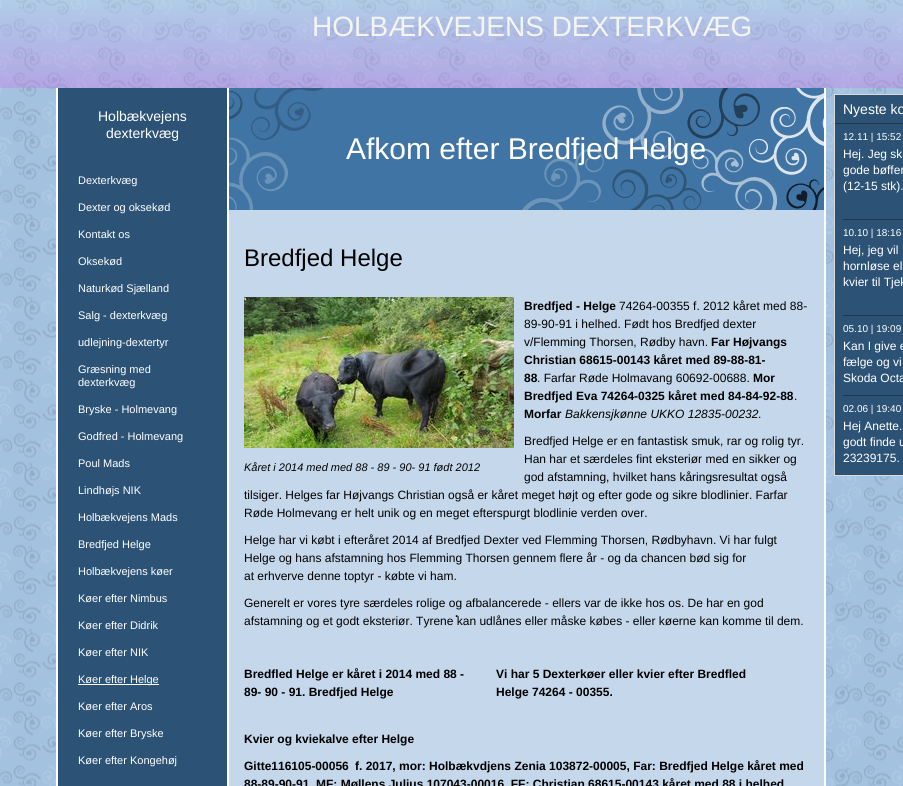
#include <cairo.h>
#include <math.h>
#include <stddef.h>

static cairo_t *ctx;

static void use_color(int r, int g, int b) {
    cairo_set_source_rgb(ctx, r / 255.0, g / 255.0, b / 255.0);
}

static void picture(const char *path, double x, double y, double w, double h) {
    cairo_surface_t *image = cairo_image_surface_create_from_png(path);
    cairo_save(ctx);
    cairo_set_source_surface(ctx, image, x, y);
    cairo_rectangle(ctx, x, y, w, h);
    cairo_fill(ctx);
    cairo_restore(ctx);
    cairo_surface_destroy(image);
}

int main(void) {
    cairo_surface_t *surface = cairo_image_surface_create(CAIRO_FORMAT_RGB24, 903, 786);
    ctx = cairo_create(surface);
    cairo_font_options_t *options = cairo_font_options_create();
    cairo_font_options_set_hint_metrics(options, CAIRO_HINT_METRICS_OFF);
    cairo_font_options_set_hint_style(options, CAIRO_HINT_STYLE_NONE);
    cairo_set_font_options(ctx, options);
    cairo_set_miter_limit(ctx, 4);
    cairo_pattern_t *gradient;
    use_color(163, 194, 224);
    cairo_paint(ctx);
    picture("img1.png", 0, 0, 903, 786);
    gradient = cairo_pattern_create_linear(525, 88, 525, 0);
    cairo_pattern_add_color_stop_rgba(gradient, 0, 0.808, 0.439, 0.918, 0.35);
    cairo_pattern_add_color_stop_rgba(gradient, 1, 0.788, 0.875, 0.969, 0.35);
    cairo_set_source(ctx, gradient);
    cairo_pattern_destroy(gradient);
    cairo_rectangle(ctx, 0, 0, 903, 88);
    cairo_fill(ctx);
    cairo_select_font_face(ctx, "Liberation Sans", CAIRO_FONT_SLANT_NORMAL, CAIRO_FONT_WEIGHT_NORMAL);
    cairo_set_font_size(ctx, 28);
    use_color(244, 244, 241);
    cairo_move_to(ctx, 312, 36);
    cairo_show_text(ctx, "HOLBÆKVEJENS DEXTERKVÆG");
    use_color(255, 255, 255);
    cairo_rectangle(ctx, 56, 88, 770, 698);
    cairo_fill(ctx);
    use_color(44, 83, 118);
    cairo_rectangle(ctx, 58, 88, 169, 698);
    cairo_fill(ctx);
    cairo_set_font_size(ctx, 14);
    use_color(255, 255, 255);
    cairo_move_to(ctx, 98, 121);
    cairo_show_text(ctx, "Holbækvejens");
    cairo_move_to(ctx, 106, 138);
    cairo_show_text(ctx, "dexterkvæg");
    use_color(196, 215, 235);
    cairo_rectangle(ctx, 229, 210, 595, 576);
    cairo_fill(ctx);
    use_color(64, 116, 164);
    cairo_rectangle(ctx, 229, 88, 595, 122);
    cairo_fill(ctx);
    picture("img2.png", 229, 88, 595, 122);
    cairo_set_font_size(ctx, 30);
    use_color(255, 255, 255);
    cairo_move_to(ctx, 346, 159);
    cairo_show_text(ctx, "Afkom efter Bredfjed Helge");
    cairo_set_font_size(ctx, 24);
    use_color(0, 0, 0);
    cairo_move_to(ctx, 244, 266);
    cairo_show_text(ctx, "Bredfjed Helge");
    cairo_select_font_face(ctx, "Liberation Sans", CAIRO_FONT_SLANT_NORMAL, CAIRO_FONT_WEIGHT_BOLD);
    cairo_set_font_size(ctx, 12);
    cairo_move_to(ctx, 524, 310);
    cairo_show_text(ctx, "Bredfjed - Helge");
    cairo_select_font_face(ctx, "Liberation Sans", CAIRO_FONT_SLANT_NORMAL, CAIRO_FONT_WEIGHT_NORMAL);
    cairo_move_to(ctx, 619, 310);
    cairo_show_text(ctx, "74264-00355 f. 2012 kåret med 88-");
    cairo_move_to(ctx, 524, 328);
    cairo_show_text(ctx, "89-90-91 i helhed. Født hos Bredfjed dexter");
    cairo_move_to(ctx, 524, 346);
    cairo_show_text(ctx, "v/Flemming Thorsen, Rødby havn.");
    cairo_select_font_face(ctx, "Liberation Sans", CAIRO_FONT_SLANT_NORMAL, CAIRO_FONT_WEIGHT_BOLD);
    cairo_move_to(ctx, 711, 346);
    cairo_show_text(ctx, "Far Højvangs");
    cairo_move_to(ctx, 524, 364);
    cairo_show_text(ctx, "Christian 68615-00143 kåret med 89-88-81-");
    cairo_move_to(ctx, 524, 382);
    cairo_show_text(ctx, "88");
    cairo_select_font_face(ctx, "Liberation Sans", CAIRO_FONT_SLANT_NORMAL, CAIRO_FONT_WEIGHT_NORMAL);
    cairo_move_to(ctx, 537, 382);
    cairo_show_text(ctx, ". Farfar Røde Holmavang 60692-00688.");
    cairo_select_font_face(ctx, "Liberation Sans", CAIRO_FONT_SLANT_NORMAL, CAIRO_FONT_WEIGHT_BOLD);
    cairo_move_to(ctx, 753, 382);
    cairo_show_text(ctx, "Mor");
    cairo_move_to(ctx, 524, 400);
    cairo_show_text(ctx, "Bredfjed Eva 74264-0325 kåret med 84-84-92-88");
    cairo_select_font_face(ctx, "Liberation Sans", CAIRO_FONT_SLANT_NORMAL, CAIRO_FONT_WEIGHT_NORMAL);
    cairo_move_to(ctx, 794, 400);
    cairo_show_text(ctx, ".");
    cairo_select_font_face(ctx, "Liberation Sans", CAIRO_FONT_SLANT_NORMAL, CAIRO_FONT_WEIGHT_BOLD);
    cairo_move_to(ctx, 524, 418);
    cairo_show_text(ctx, "Morfar");
    cairo_select_font_face(ctx, "Liberation Sans", CAIRO_FONT_SLANT_ITALIC, CAIRO_FONT_WEIGHT_NORMAL);
    cairo_move_to(ctx, 565, 418);
    cairo_show_text(ctx, "Bakkensjkønne UKKO 12835-00232");
    cairo_select_font_face(ctx, "Liberation Sans", CAIRO_FONT_SLANT_NORMAL, CAIRO_FONT_WEIGHT_NORMAL);
    cairo_move_to(ctx, 758, 418);
    cairo_show_text(ctx, ".");
    cairo_move_to(ctx, 524, 445);
    cairo_show_text(ctx, "Bredfjed Helge er en fantastisk smuk, rar og rolig tyr.");
    cairo_move_to(ctx, 524, 463);
    cairo_show_text(ctx, "Han har et særdeles fint eksteriør med en sikker og");
    cairo_move_to(ctx, 524, 481);
    cairo_show_text(ctx, "god afstamning, hvilket hans kåringsresultat også");
    cairo_move_to(ctx, 244, 499);
    cairo_show_text(ctx, "tilsiger. Helges far Højvangs Christian også er kåret meget højt og efter gode og sikre blodlinier. Farfar");
    cairo_move_to(ctx, 244, 517);
    cairo_show_text(ctx, "Røde Holmevang er helt unik og en meget efterspurgt blodlinie verden over.");
    picture("img3.png", 244, 297, 270, 151);
    cairo_select_font_face(ctx, "Liberation Sans", CAIRO_FONT_SLANT_ITALIC, CAIRO_FONT_WEIGHT_NORMAL);
    cairo_set_font_size(ctx, 11);
    cairo_move_to(ctx, 244, 471);
    cairo_show_text(ctx, "Kåret i 2014 med med 88 - 89 - 90- 91 født 2012");
    cairo_select_font_face(ctx, "Liberation Sans", CAIRO_FONT_SLANT_NORMAL, CAIRO_FONT_WEIGHT_NORMAL);
    cairo_set_font_size(ctx, 12);
    cairo_move_to(ctx, 244, 544);
    cairo_show_text(ctx, "Helge har vi købt i efteråret 2014 af Bredfjed Dexter ved Flemming Thorsen, Rødbyhavn. Vi har fulgt");
    cairo_move_to(ctx, 244, 562);
    cairo_show_text(ctx, "Helge og hans afstamning hos Flemming Thorsen gennem flere år - og da chancen bød sig for");
    cairo_move_to(ctx, 244, 580);
    cairo_show_text(ctx, "at erhverve denne toptyr - købte vi ham.");
    cairo_move_to(ctx, 244, 607);
    cairo_show_text(ctx, "Generelt er vores tyre særdeles rolige og afbalancerede - ellers var de ikke hos os. De har en god");
    cairo_move_to(ctx, 244, 625);
    cairo_show_text(ctx, "afstamning og et godt eksteriør. Tyrene kan udlånes eller måske købes - eller køerne kan komme til dem.");
    cairo_select_font_face(ctx, "Liberation Sans", CAIRO_FONT_SLANT_NORMAL, CAIRO_FONT_WEIGHT_BOLD);
    cairo_move_to(ctx, 455, 617);
    cairo_show_text(ctx, ".");
    cairo_move_to(ctx, 244, 678);
    cairo_show_text(ctx, "Bredfled Helge er kåret i 2014 med 88 -");
    cairo_move_to(ctx, 244, 696);
    cairo_show_text(ctx, "89- 90 - 91. Bredfjed Helge");
    cairo_move_to(ctx, 496, 678);
    cairo_show_text(ctx, "Vi har 5 Dexterkøer eller kvier efter Bredfled");
    cairo_move_to(ctx, 496, 696);
    cairo_show_text(ctx, "Helge 74264 - 00355.");
    cairo_move_to(ctx, 244, 743);
    cairo_show_text(ctx, "Kvier og kviekalve efter Helge");
    cairo_move_to(ctx, 244, 770);
    cairo_show_text(ctx, "Gitte116105-00056");
    cairo_move_to(ctx, 355, 770);
    cairo_show_text(ctx, "f. 2017, mor: Holbækvdjens Zenia 103872-00005, Far: Bredfjed Helge kåret med");
    cairo_move_to(ctx, 244, 788);
    cairo_show_text(ctx, "88-89-90-91");
    cairo_move_to(ctx, 316, 788);
    cairo_show_text(ctx, "MF: Møllens Julius 107043-00016, FF: Christian 68615-00143 kåret med 88 i helhed");
    use_color(44, 83, 118);
    cairo_rectangle(ctx, 834.5, 94.5, 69, 381);
    cairo_fill_preserve(ctx);
    use_color(218, 218, 218);
    cairo_set_line_width(ctx, 1);
    cairo_stroke(ctx);
    cairo_select_font_face(ctx, "Liberation Sans", CAIRO_FONT_SLANT_NORMAL, CAIRO_FONT_WEIGHT_NORMAL);
    cairo_set_font_size(ctx, 14);
    use_color(255, 255, 255);
    cairo_move_to(ctx, 843, 114);
    cairo_show_text(ctx, "Nyeste ko");
    picture("img4.png", 835, 123, 68, 1);
    cairo_set_font_size(ctx, 10);
    cairo_move_to(ctx, 843, 140);
    cairo_show_text(ctx, "12.11 | 15:52");
    cairo_set_font_size(ctx, 12);
    cairo_move_to(ctx, 843, 158);
    cairo_show_text(ctx, "Hej. Jeg sk");
    cairo_move_to(ctx, 843, 174);
    cairo_show_text(ctx, "gode bøffer");
    cairo_move_to(ctx, 843, 190);
    cairo_show_text(ctx, "(12-15 stk).");
    picture("img5.png", 843, 219, 60, 1);
    cairo_set_font_size(ctx, 10);
    cairo_move_to(ctx, 843, 236);
    cairo_show_text(ctx, "10.10 | 18:16");
    cairo_set_font_size(ctx, 12);
    cairo_move_to(ctx, 843, 254);
    cairo_show_text(ctx, "Hej, jeg vil");
    cairo_move_to(ctx, 843, 270);
    cairo_show_text(ctx, "hornløse el");
    cairo_move_to(ctx, 843, 286);
    cairo_show_text(ctx, "kvier til Tjek");
    picture("img5.png", 843, 315, 60, 1);
    cairo_set_font_size(ctx, 10);
    cairo_move_to(ctx, 843, 332);
    cairo_show_text(ctx, "05.10 | 19:09");
    cairo_set_font_size(ctx, 12);
    cairo_move_to(ctx, 843, 350);
    cairo_show_text(ctx, "Kan I give e");
    cairo_move_to(ctx, 843, 366);
    cairo_show_text(ctx, "fælge og vi");
    cairo_move_to(ctx, 843, 382);
    cairo_show_text(ctx, "Skoda Octa");
    picture("img5.png", 843, 395, 60, 1);
    cairo_set_font_size(ctx, 10);
    cairo_move_to(ctx, 843, 412);
    cairo_show_text(ctx, "02.06 | 19:40");
    cairo_set_font_size(ctx, 12);
    cairo_move_to(ctx, 843, 430);
    cairo_show_text(ctx, "Hej Anette.");
    cairo_move_to(ctx, 843, 446);
    cairo_show_text(ctx, "godt finde u");
    cairo_move_to(ctx, 843, 462);
    cairo_show_text(ctx, "23239175.");
    cairo_set_font_size(ctx, 11);
    cairo_move_to(ctx, 78, 184);
    cairo_show_text(ctx, "Dexterkvæg");
    cairo_move_to(ctx, 78, 211);
    cairo_show_text(ctx, "Dexter og oksekød");
    cairo_move_to(ctx, 78, 238);
    cairo_show_text(ctx, "Kontakt os");
    cairo_move_to(ctx, 78, 265);
    cairo_show_text(ctx, "Oksekød");
    cairo_move_to(ctx, 78, 292);
    cairo_show_text(ctx, "Naturkød Sjælland");
    cairo_move_to(ctx, 78, 319);
    cairo_show_text(ctx, "Salg - dexterkvæg");
    cairo_move_to(ctx, 78, 346);
    cairo_show_text(ctx, "udlejning-dextertyr");
    cairo_move_to(ctx, 78, 373);
    cairo_show_text(ctx, "Græsning med");
    cairo_move_to(ctx, 78, 386);
    cairo_show_text(ctx, "dexterkvæg");
    cairo_move_to(ctx, 78, 413);
    cairo_show_text(ctx, "Bryske - Holmevang");
    cairo_move_to(ctx, 78, 440);
    cairo_show_text(ctx, "Godfred - Holmevang");
    cairo_move_to(ctx, 78, 467);
    cairo_show_text(ctx, "Poul Mads");
    cairo_move_to(ctx, 78, 494);
    cairo_show_text(ctx, "Lindhøjs NIK");
    cairo_move_to(ctx, 78, 521);
    cairo_show_text(ctx, "Holbækvejens Mads");
    cairo_move_to(ctx, 78, 548);
    cairo_show_text(ctx, "Bredfjed Helge");
    cairo_move_to(ctx, 78, 575);
    cairo_show_text(ctx, "Holbækvejens køer");
    cairo_move_to(ctx, 78, 602);
    cairo_show_text(ctx, "Køer efter Nimbus");
    cairo_move_to(ctx, 78, 629);
    cairo_show_text(ctx, "Køer efter Didrik");
    cairo_move_to(ctx, 78, 656);
    cairo_show_text(ctx, "Køer efter NIK");
    cairo_rectangle(ctx, 78, 684, 81, 1);
    cairo_fill(ctx);
    cairo_move_to(ctx, 78, 683);
    cairo_show_text(ctx, "Køer efter Helge");
    cairo_move_to(ctx, 78, 710);
    cairo_show_text(ctx, "Køer efter Aros");
    cairo_move_to(ctx, 78, 737);
    cairo_show_text(ctx, "Køer efter Bryske");
    cairo_move_to(ctx, 78, 764);
    cairo_show_text(ctx, "Køer efter Kongehøj");
    cairo_surface_write_to_png(surface, "result.png");
    cairo_font_options_destroy(options);
    cairo_destroy(ctx);
    cairo_surface_destroy(surface);
    return 0;
}
